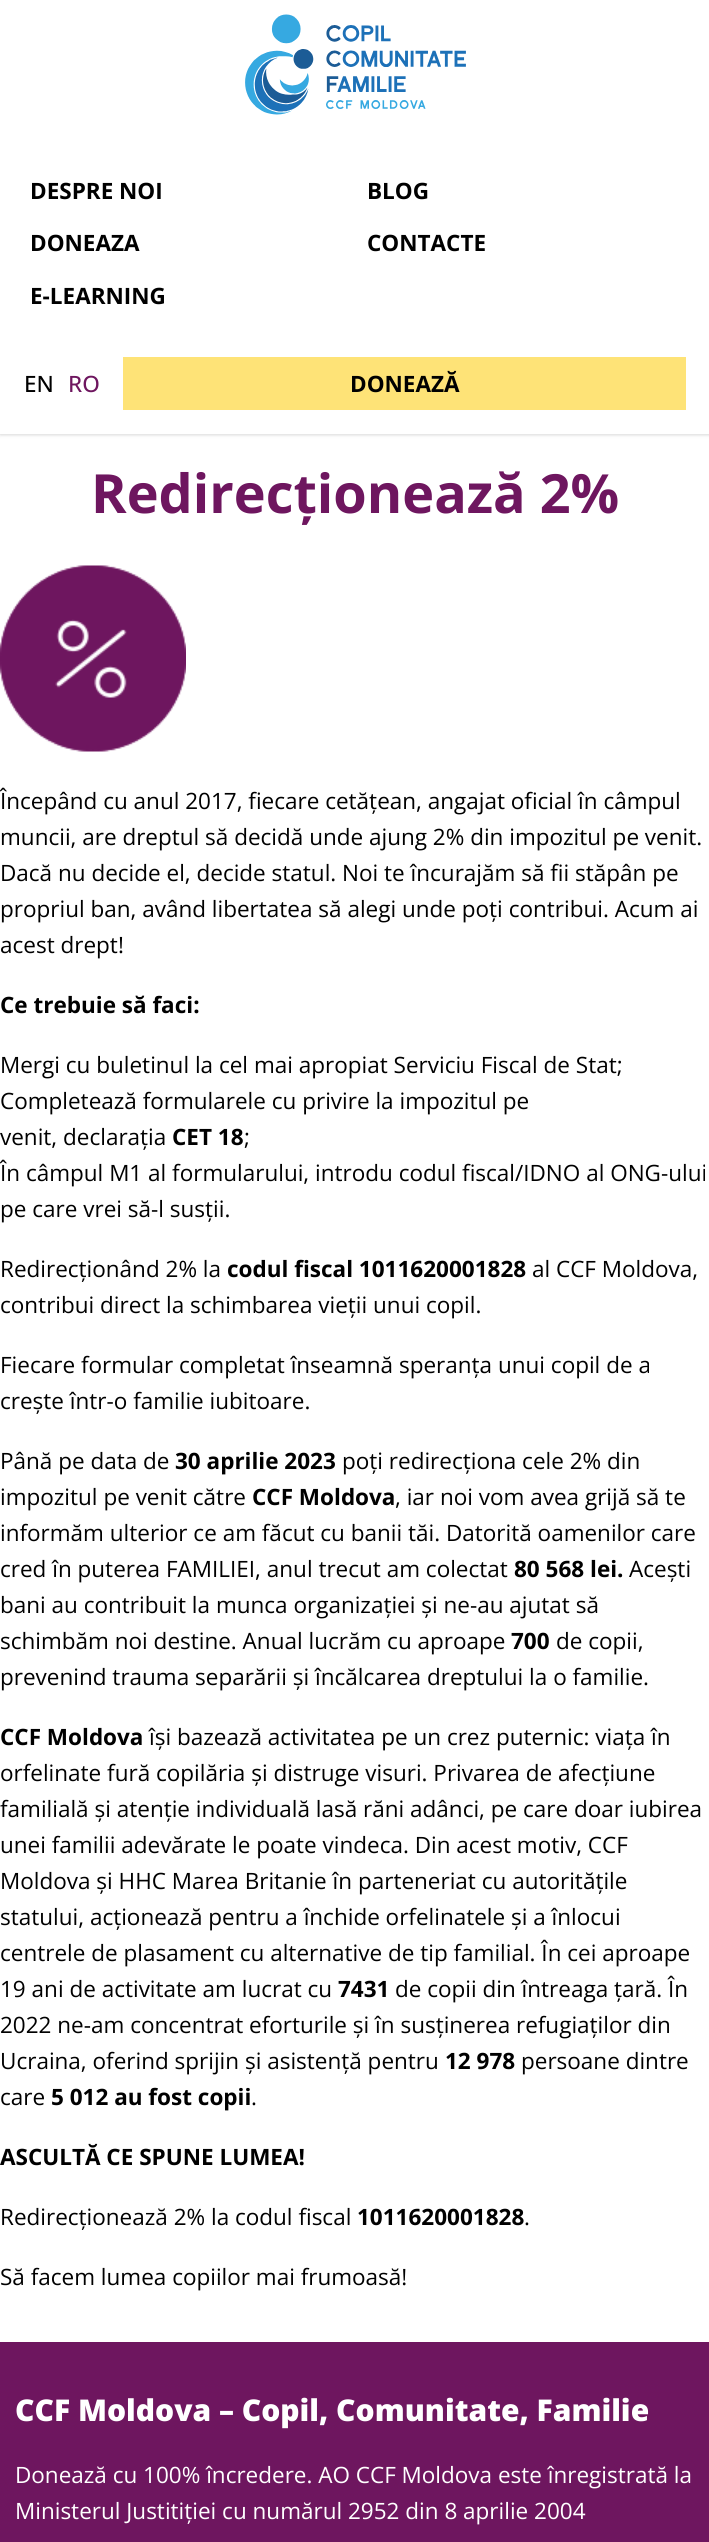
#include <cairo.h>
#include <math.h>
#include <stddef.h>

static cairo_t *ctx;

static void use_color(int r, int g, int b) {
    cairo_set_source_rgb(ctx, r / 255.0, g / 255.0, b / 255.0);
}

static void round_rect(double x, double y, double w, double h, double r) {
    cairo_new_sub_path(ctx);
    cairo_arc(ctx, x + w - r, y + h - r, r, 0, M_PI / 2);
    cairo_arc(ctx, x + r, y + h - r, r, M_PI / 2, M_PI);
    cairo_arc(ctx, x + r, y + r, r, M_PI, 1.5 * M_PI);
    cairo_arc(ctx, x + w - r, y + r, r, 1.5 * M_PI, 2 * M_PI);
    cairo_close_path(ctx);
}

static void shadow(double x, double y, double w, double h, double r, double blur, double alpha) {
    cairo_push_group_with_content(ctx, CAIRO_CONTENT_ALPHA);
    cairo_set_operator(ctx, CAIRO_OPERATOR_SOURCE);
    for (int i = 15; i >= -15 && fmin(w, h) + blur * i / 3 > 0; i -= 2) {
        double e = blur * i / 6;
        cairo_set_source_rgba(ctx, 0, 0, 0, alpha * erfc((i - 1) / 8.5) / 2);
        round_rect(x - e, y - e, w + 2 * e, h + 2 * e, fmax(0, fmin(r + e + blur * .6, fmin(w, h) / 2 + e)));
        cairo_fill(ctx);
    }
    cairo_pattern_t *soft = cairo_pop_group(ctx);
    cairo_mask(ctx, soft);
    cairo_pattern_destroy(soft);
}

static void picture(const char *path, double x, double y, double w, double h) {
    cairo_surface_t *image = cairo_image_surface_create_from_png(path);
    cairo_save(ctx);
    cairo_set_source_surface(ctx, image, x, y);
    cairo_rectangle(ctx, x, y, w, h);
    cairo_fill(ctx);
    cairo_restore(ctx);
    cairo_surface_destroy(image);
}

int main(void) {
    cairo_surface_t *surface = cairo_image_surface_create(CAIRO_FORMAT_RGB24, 709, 2542);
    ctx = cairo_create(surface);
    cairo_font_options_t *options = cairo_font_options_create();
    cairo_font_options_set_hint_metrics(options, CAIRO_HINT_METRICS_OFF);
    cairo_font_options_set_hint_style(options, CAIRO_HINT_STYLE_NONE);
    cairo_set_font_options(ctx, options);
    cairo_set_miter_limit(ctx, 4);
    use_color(255, 255, 255);
    cairo_paint(ctx);
    use_color(0, 0, 0);
    shadow(0, 2, 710, 433, 0, 1.5, 0.06);
    shadow(0, 2, 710, 433, 0, 2, 0.1);
    use_color(255, 255, 255);
    cairo_rectangle(ctx, 0, 0, 709, 434);
    cairo_fill(ctx);
    picture("img1.png", 245, 14, 221, 101);
    cairo_select_font_face(ctx, "Open Sans", CAIRO_FONT_SLANT_NORMAL, CAIRO_FONT_WEIGHT_BOLD);
    cairo_set_font_size(ctx, 22.5);
    use_color(0, 0, 0);
    cairo_move_to(ctx, 30, 199);
    cairo_show_text(ctx, "DESPRE NOI");
    cairo_move_to(ctx, 367, 199);
    cairo_show_text(ctx, "BLOG");
    cairo_move_to(ctx, 30, 251);
    cairo_show_text(ctx, "DONEAZA");
    cairo_move_to(ctx, 367, 251);
    cairo_show_text(ctx, "CONTACTE");
    cairo_move_to(ctx, 30, 304);
    cairo_show_text(ctx, "E-LEARNING");
    cairo_select_font_face(ctx, "Open Sans Medium", CAIRO_FONT_SLANT_NORMAL, CAIRO_FONT_WEIGHT_NORMAL);
    cairo_move_to(ctx, 24, 392);
    cairo_show_text(ctx, "EN");
    use_color(110, 22, 95);
    cairo_move_to(ctx, 68, 392);
    cairo_show_text(ctx, "RO");
    use_color(254, 227, 119);
    cairo_rectangle(ctx, 123, 357, 563, 53);
    cairo_fill(ctx);
    cairo_select_font_face(ctx, "Open Sans", CAIRO_FONT_SLANT_NORMAL, CAIRO_FONT_WEIGHT_BOLD);
    use_color(0, 0, 0);
    cairo_move_to(ctx, 350, 392);
    cairo_show_text(ctx, "DONEAZĂ");
    cairo_set_font_size(ctx, 54);
    use_color(110, 22, 95);
    cairo_move_to(ctx, 91, 513);
    cairo_show_text(ctx, "Redirecționează 2%");
    picture("img2.png", 0, 565, 186, 187);
    cairo_select_font_face(ctx, "Open Sans", CAIRO_FONT_SLANT_NORMAL, CAIRO_FONT_WEIGHT_NORMAL);
    cairo_set_font_size(ctx, 22.5);
    use_color(0, 0, 0);
    cairo_move_to(ctx, 0, 809);
    cairo_show_text(ctx, "Începând cu anul 2017, fiecare cetățean, angajat oficial în câmpul");
    cairo_move_to(ctx, 0, 845);
    cairo_show_text(ctx, "muncii, are dreptul să decidă unde ajung 2% din impozitul pe venit.");
    cairo_move_to(ctx, 0, 881);
    cairo_show_text(ctx, "Dacă nu decide el, decide statul. Noi te încurajăm să fii stăpân pe");
    cairo_move_to(ctx, 0, 917);
    cairo_show_text(ctx, "propriul ban, având libertatea să alegi unde poți contribui. Acum ai");
    cairo_move_to(ctx, 0, 953);
    cairo_show_text(ctx, "acest drept!");
    cairo_select_font_face(ctx, "Open Sans", CAIRO_FONT_SLANT_NORMAL, CAIRO_FONT_WEIGHT_BOLD);
    cairo_move_to(ctx, 0, 1013);
    cairo_show_text(ctx, "Ce trebuie să faci:");
    cairo_select_font_face(ctx, "Open Sans", CAIRO_FONT_SLANT_NORMAL, CAIRO_FONT_WEIGHT_NORMAL);
    cairo_move_to(ctx, 0, 1073);
    cairo_show_text(ctx, "Mergi cu buletinul la cel mai apropiat Serviciu Fiscal de Stat;");
    cairo_move_to(ctx, 0, 1109);
    cairo_show_text(ctx, "Completează formularele cu privire la impozitul pe");
    cairo_move_to(ctx, 0, 1145);
    cairo_show_text(ctx, "venit, declarația");
    cairo_select_font_face(ctx, "Open Sans", CAIRO_FONT_SLANT_NORMAL, CAIRO_FONT_WEIGHT_BOLD);
    cairo_move_to(ctx, 172, 1145);
    cairo_show_text(ctx, "CET 18");
    cairo_select_font_face(ctx, "Open Sans", CAIRO_FONT_SLANT_NORMAL, CAIRO_FONT_WEIGHT_NORMAL);
    cairo_move_to(ctx, 244, 1145);
    cairo_show_text(ctx, ";");
    cairo_move_to(ctx, 0, 1181);
    cairo_show_text(ctx, "În câmpul M1 al formularului, introdu codul fiscal/IDNO al ONG-ului");
    cairo_move_to(ctx, 0, 1217);
    cairo_show_text(ctx, "pe care vrei să-l susții.");
    cairo_move_to(ctx, 0, 1277);
    cairo_show_text(ctx, "Redirecționând 2% la");
    cairo_select_font_face(ctx, "Open Sans", CAIRO_FONT_SLANT_NORMAL, CAIRO_FONT_WEIGHT_BOLD);
    cairo_move_to(ctx, 227, 1277);
    cairo_show_text(ctx, "codul fiscal 1011620001828");
    cairo_select_font_face(ctx, "Open Sans", CAIRO_FONT_SLANT_NORMAL, CAIRO_FONT_WEIGHT_NORMAL);
    cairo_move_to(ctx, 532, 1277);
    cairo_show_text(ctx, "al CCF Moldova,");
    cairo_move_to(ctx, 0, 1313);
    cairo_show_text(ctx, "contribui direct la schimbarea vieții unui copil.");
    cairo_move_to(ctx, 0, 1373);
    cairo_show_text(ctx, "Fiecare formular completat înseamnă speranța unui copil de a");
    cairo_move_to(ctx, 0, 1409);
    cairo_show_text(ctx, "crește într-o familie iubitoare.");
    cairo_move_to(ctx, 0, 1469);
    cairo_show_text(ctx, "Până pe data de");
    cairo_select_font_face(ctx, "Open Sans", CAIRO_FONT_SLANT_NORMAL, CAIRO_FONT_WEIGHT_BOLD);
    cairo_move_to(ctx, 175, 1469);
    cairo_show_text(ctx, "30 aprilie 2023");
    cairo_select_font_face(ctx, "Open Sans", CAIRO_FONT_SLANT_NORMAL, CAIRO_FONT_WEIGHT_NORMAL);
    cairo_move_to(ctx, 342, 1469);
    cairo_show_text(ctx, "poți redirecționa cele 2% din");
    cairo_move_to(ctx, 0, 1505);
    cairo_show_text(ctx, "impozitul pe venit către");
    cairo_select_font_face(ctx, "Open Sans", CAIRO_FONT_SLANT_NORMAL, CAIRO_FONT_WEIGHT_BOLD);
    cairo_move_to(ctx, 252, 1505);
    cairo_show_text(ctx, "CCF Moldova");
    cairo_select_font_face(ctx, "Open Sans", CAIRO_FONT_SLANT_NORMAL, CAIRO_FONT_WEIGHT_NORMAL);
    cairo_move_to(ctx, 395, 1505);
    cairo_show_text(ctx, ", iar noi vom avea grijă să te");
    cairo_move_to(ctx, 0, 1541);
    cairo_show_text(ctx, "informăm ulterior ce am făcut cu banii tăi. Datorită oamenilor care");
    cairo_move_to(ctx, 0, 1577);
    cairo_show_text(ctx, "cred în puterea FAMILIEI, anul trecut am colectat");
    cairo_select_font_face(ctx, "Open Sans", CAIRO_FONT_SLANT_NORMAL, CAIRO_FONT_WEIGHT_BOLD);
    cairo_move_to(ctx, 514, 1577);
    cairo_show_text(ctx, "80 568 lei.");
    cairo_select_font_face(ctx, "Open Sans", CAIRO_FONT_SLANT_NORMAL, CAIRO_FONT_WEIGHT_NORMAL);
    cairo_move_to(ctx, 629, 1577);
    cairo_show_text(ctx, "Acești");
    cairo_move_to(ctx, 0, 1613);
    cairo_show_text(ctx, "bani au contribuit la munca organizației și ne-au ajutat să");
    cairo_move_to(ctx, 0, 1649);
    cairo_show_text(ctx, "schimbăm noi destine. Anual lucrăm cu aproape");
    cairo_select_font_face(ctx, "Open Sans", CAIRO_FONT_SLANT_NORMAL, CAIRO_FONT_WEIGHT_BOLD);
    cairo_move_to(ctx, 511, 1649);
    cairo_show_text(ctx, "700");
    cairo_select_font_face(ctx, "Open Sans", CAIRO_FONT_SLANT_NORMAL, CAIRO_FONT_WEIGHT_NORMAL);
    cairo_move_to(ctx, 556, 1649);
    cairo_show_text(ctx, "de copii,");
    cairo_move_to(ctx, 0, 1685);
    cairo_show_text(ctx, "prevenind trauma separării și încălcarea dreptului la o familie.");
    cairo_select_font_face(ctx, "Open Sans", CAIRO_FONT_SLANT_NORMAL, CAIRO_FONT_WEIGHT_BOLD);
    cairo_move_to(ctx, 0, 1745);
    cairo_show_text(ctx, "CCF Moldova");
    cairo_select_font_face(ctx, "Open Sans", CAIRO_FONT_SLANT_NORMAL, CAIRO_FONT_WEIGHT_NORMAL);
    cairo_move_to(ctx, 149, 1745);
    cairo_show_text(ctx, "își bazează activitatea pe un crez puternic: viața în");
    cairo_move_to(ctx, 0, 1781);
    cairo_show_text(ctx, "orfelinate fură copilăria și distruge visuri. Privarea de afecțiune");
    cairo_move_to(ctx, 0, 1817);
    cairo_show_text(ctx, "familială și atenție individuală lasă răni adânci, pe care doar iubirea");
    cairo_move_to(ctx, 0, 1853);
    cairo_show_text(ctx, "unei familii adevărate le poate vindeca. Din acest motiv, CCF");
    cairo_move_to(ctx, 0, 1889);
    cairo_show_text(ctx, "Moldova și HHC Marea Britanie în parteneriat cu autoritățile");
    cairo_move_to(ctx, 0, 1925);
    cairo_show_text(ctx, "statului, acționează pentru a închide orfelinatele și a înlocui");
    cairo_move_to(ctx, 0, 1961);
    cairo_show_text(ctx, "centrele de plasament cu alternative de tip familial. În cei aproape");
    cairo_move_to(ctx, 0, 1997);
    cairo_show_text(ctx, "19 ani de activitate am lucrat cu");
    cairo_select_font_face(ctx, "Open Sans", CAIRO_FONT_SLANT_NORMAL, CAIRO_FONT_WEIGHT_BOLD);
    cairo_move_to(ctx, 338, 1997);
    cairo_show_text(ctx, "7431");
    cairo_select_font_face(ctx, "Open Sans", CAIRO_FONT_SLANT_NORMAL, CAIRO_FONT_WEIGHT_NORMAL);
    cairo_move_to(ctx, 395, 1997);
    cairo_show_text(ctx, "de copii din întreaga țară. În");
    cairo_move_to(ctx, 0, 2033);
    cairo_show_text(ctx, "2022 ne-am concentrat eforturile și în susținerea refugiaților din");
    cairo_move_to(ctx, 0, 2069);
    cairo_show_text(ctx, "Ucraina, oferind sprijin și asistență pentru");
    cairo_select_font_face(ctx, "Open Sans", CAIRO_FONT_SLANT_NORMAL, CAIRO_FONT_WEIGHT_BOLD);
    cairo_move_to(ctx, 445, 2069);
    cairo_show_text(ctx, "12 978");
    cairo_select_font_face(ctx, "Open Sans", CAIRO_FONT_SLANT_NORMAL, CAIRO_FONT_WEIGHT_NORMAL);
    cairo_move_to(ctx, 521, 2069);
    cairo_show_text(ctx, "persoane dintre");
    cairo_move_to(ctx, 0, 2105);
    cairo_show_text(ctx, "care");
    cairo_select_font_face(ctx, "Open Sans", CAIRO_FONT_SLANT_NORMAL, CAIRO_FONT_WEIGHT_BOLD);
    cairo_move_to(ctx, 51, 2105);
    cairo_show_text(ctx, "5 012 au fost copii");
    cairo_select_font_face(ctx, "Open Sans", CAIRO_FONT_SLANT_NORMAL, CAIRO_FONT_WEIGHT_NORMAL);
    cairo_move_to(ctx, 251, 2105);
    cairo_show_text(ctx, ".");
    cairo_select_font_face(ctx, "Open Sans", CAIRO_FONT_SLANT_NORMAL, CAIRO_FONT_WEIGHT_BOLD);
    cairo_move_to(ctx, 0, 2165);
    cairo_show_text(ctx, "ASCULTĂ CE SPUNE LUMEA!");
    cairo_select_font_face(ctx, "Open Sans", CAIRO_FONT_SLANT_NORMAL, CAIRO_FONT_WEIGHT_NORMAL);
    cairo_move_to(ctx, 0, 2225);
    cairo_show_text(ctx, "Redirecționează 2% la codul fiscal");
    cairo_select_font_face(ctx, "Open Sans", CAIRO_FONT_SLANT_NORMAL, CAIRO_FONT_WEIGHT_BOLD);
    cairo_move_to(ctx, 357, 2225);
    cairo_show_text(ctx, "1011620001828");
    cairo_select_font_face(ctx, "Open Sans", CAIRO_FONT_SLANT_NORMAL, CAIRO_FONT_WEIGHT_NORMAL);
    cairo_move_to(ctx, 524, 2225);
    cairo_show_text(ctx, ".");
    cairo_move_to(ctx, 0, 2285);
    cairo_show_text(ctx, "Să facem lumea copiilor mai frumoasă!");
    use_color(110, 22, 95);
    cairo_rectangle(ctx, 0, 2342, 709, 200);
    cairo_fill(ctx);
    cairo_select_font_face(ctx, "Open Sans ExtraBold", CAIRO_FONT_SLANT_NORMAL, CAIRO_FONT_WEIGHT_NORMAL);
    cairo_set_font_size(ctx, 30);
    use_color(255, 255, 255);
    cairo_move_to(ctx, 15, 2421);
    cairo_show_text(ctx, "CCF Moldova – Copil, Comunitate, Familie");
    cairo_select_font_face(ctx, "Open Sans", CAIRO_FONT_SLANT_NORMAL, CAIRO_FONT_WEIGHT_NORMAL);
    cairo_set_font_size(ctx, 22.5);
    cairo_move_to(ctx, 15, 2483);
    cairo_show_text(ctx, "Donează cu 100% încredere. AO CCF Moldova este înregistrată la");
    cairo_move_to(ctx, 15, 2519);
    cairo_show_text(ctx, "Ministerul Justitiției cu numărul 2952 din 8 aprilie 2004");
    cairo_surface_write_to_png(surface, "result.png");
    cairo_font_options_destroy(options);
    cairo_destroy(ctx);
    cairo_surface_destroy(surface);
    return 0;
}
